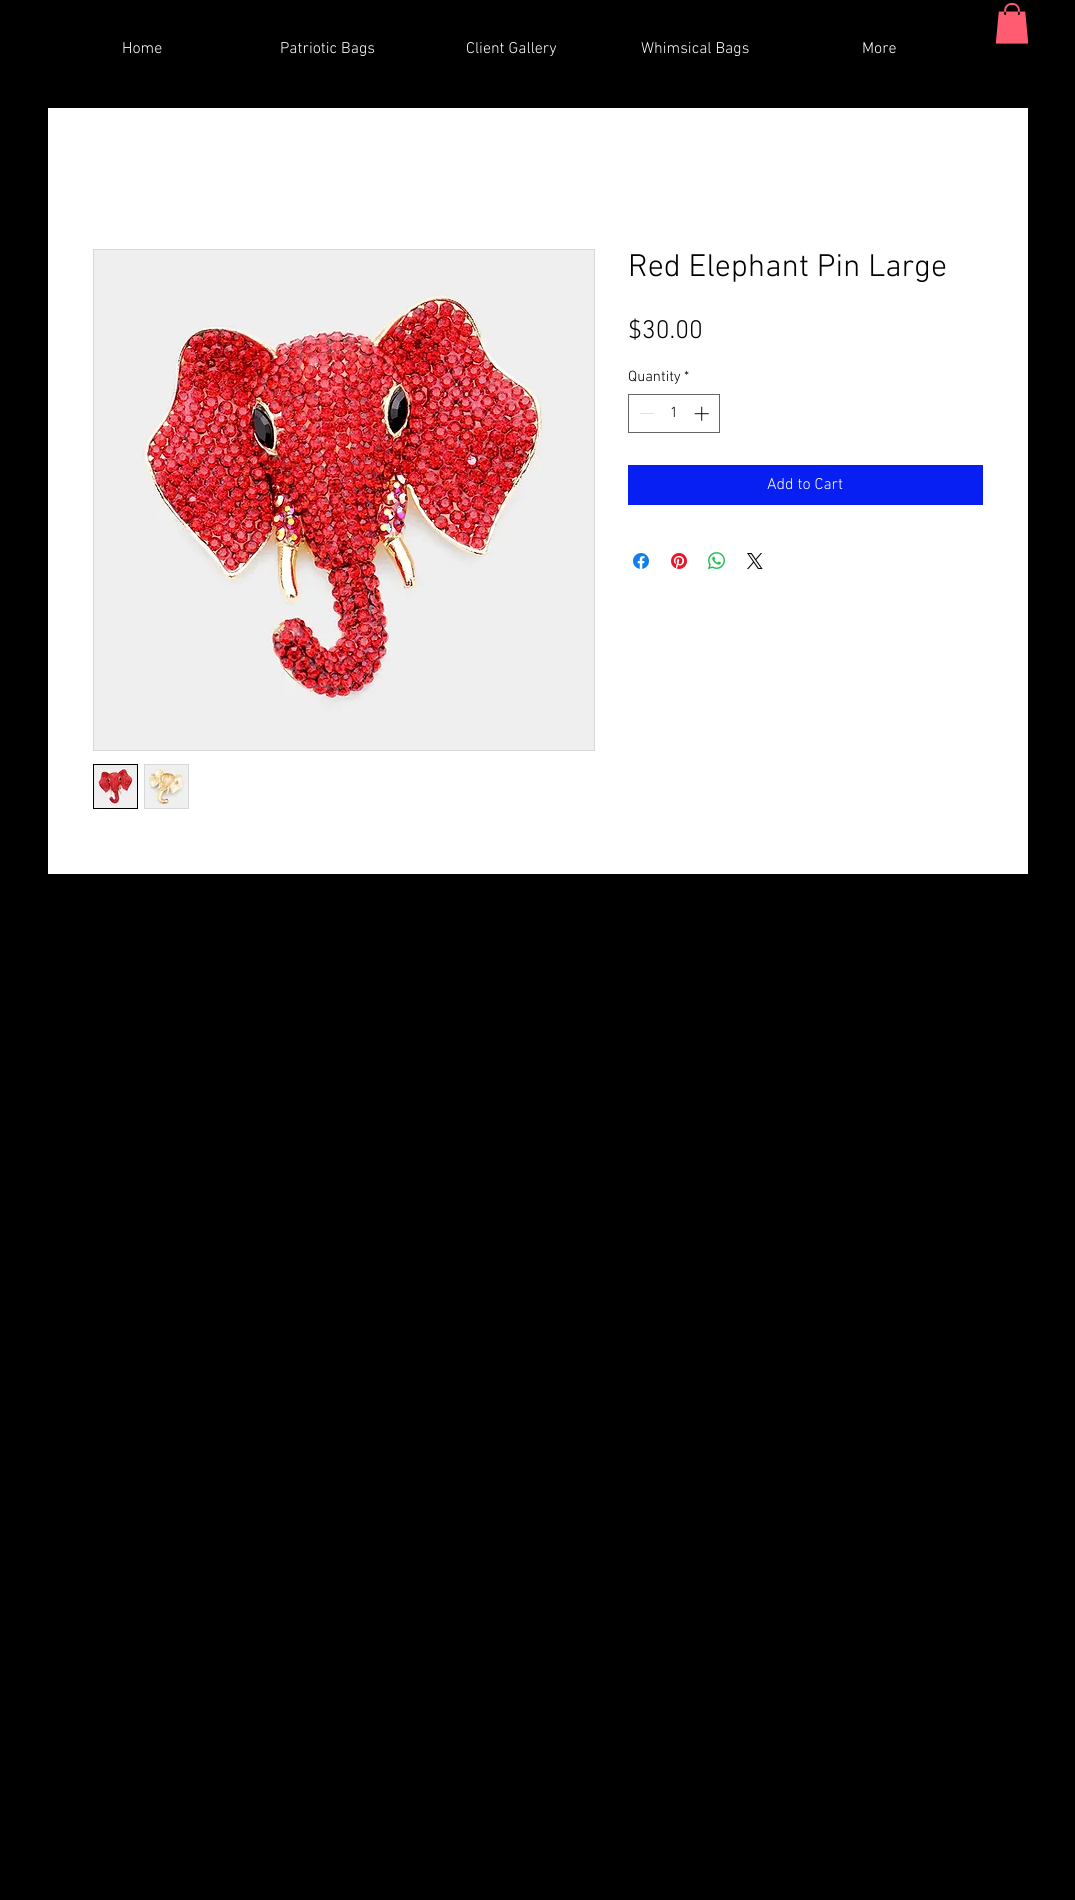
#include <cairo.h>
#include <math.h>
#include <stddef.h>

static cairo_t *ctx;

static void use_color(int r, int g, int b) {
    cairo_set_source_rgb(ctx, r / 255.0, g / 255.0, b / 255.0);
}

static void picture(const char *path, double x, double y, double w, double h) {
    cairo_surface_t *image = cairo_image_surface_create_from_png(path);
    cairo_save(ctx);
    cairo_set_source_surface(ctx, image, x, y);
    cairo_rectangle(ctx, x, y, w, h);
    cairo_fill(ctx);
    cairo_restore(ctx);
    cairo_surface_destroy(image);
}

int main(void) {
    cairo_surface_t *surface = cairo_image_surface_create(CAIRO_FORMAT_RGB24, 1075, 1900);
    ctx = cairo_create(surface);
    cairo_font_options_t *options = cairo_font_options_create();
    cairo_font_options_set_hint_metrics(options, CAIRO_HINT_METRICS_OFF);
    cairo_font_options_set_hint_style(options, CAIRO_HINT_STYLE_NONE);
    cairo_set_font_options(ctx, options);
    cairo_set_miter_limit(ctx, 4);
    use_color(0, 0, 0);
    cairo_paint(ctx);
    picture("img1.png", 995, 3, 34, 41);
    cairo_select_font_face(ctx, "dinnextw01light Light", CAIRO_FONT_SLANT_NORMAL, CAIRO_FONT_WEIGHT_NORMAL);
    cairo_set_font_size(ctx, 16);
    use_color(255, 255, 255);
    cairo_move_to(ctx, 122, 53);
    cairo_show_text(ctx, "Home");
    cairo_move_to(ctx, 280, 53);
    cairo_show_text(ctx, "Patriotic Bags");
    cairo_move_to(ctx, 466, 53);
    cairo_show_text(ctx, "Client Gallery");
    cairo_move_to(ctx, 641, 53);
    cairo_show_text(ctx, "Whimsical Bags");
    cairo_move_to(ctx, 862, 53);
    cairo_show_text(ctx, "More");
    cairo_rectangle(ctx, 48, 108, 980, 766);
    cairo_fill(ctx);
    cairo_rectangle(ctx, 93.5, 249.5, 501, 501);
    use_color(216, 216, 216);
    cairo_set_line_width(ctx, 1);
    cairo_stroke(ctx);
    picture("img2.png", 94, 250, 500, 500);
    cairo_rectangle(ctx, 93.5, 764.5, 44, 44);
    use_color(0, 0, 0);
    cairo_stroke(ctx);
    picture("img3.png", 94, 765, 43, 43);
    cairo_rectangle(ctx, 144.5, 764.5, 44, 44);
    use_color(216, 216, 216);
    cairo_stroke(ctx);
    picture("img4.png", 145, 765, 43, 43);
    cairo_set_font_size(ctx, 32);
    use_color(0, 0, 0);
    cairo_move_to(ctx, 628, 276);
    cairo_show_text(ctx, "Red Elephant Pin Large");
    cairo_set_font_size(ctx, 26);
    cairo_move_to(ctx, 628, 338);
    cairo_show_text(ctx, "$30.00");
    cairo_set_font_size(ctx, 15);
    cairo_move_to(ctx, 628, 381);
    cairo_show_text(ctx, "Quantity");
    cairo_move_to(ctx, 684, 381);
    cairo_show_text(ctx, "*");
    cairo_rectangle(ctx, 628.5, 394.5, 91, 38);
    use_color(102, 102, 102);
    cairo_stroke(ctx);
    use_color(227, 227, 227);
    cairo_rectangle(ctx, 640, 413, 14, 1);
    cairo_fill(ctx);
    use_color(0, 0, 0);
    cairo_move_to(ctx, 670, 417);
    cairo_show_text(ctx, "1");
    picture("img5.png", 694, 406, 15, 15);
    use_color(7, 31, 242);
    cairo_rectangle(ctx, 628, 465, 355, 40);
    cairo_fill(ctx);
    cairo_set_font_size(ctx, 16);
    use_color(255, 255, 255);
    cairo_move_to(ctx, 767, 489);
    cairo_show_text(ctx, "Add to Cart");
    picture("img6.png", 633, 553, 16, 16);
    picture("img7.png", 671, 553, 16, 16);
    picture("img8.png", 708, 552, 17, 17);
    picture("img9.png", 747, 553, 16, 16);
    cairo_surface_write_to_png(surface, "result.png");
    cairo_font_options_destroy(options);
    cairo_destroy(ctx);
    cairo_surface_destroy(surface);
    return 0;
}
